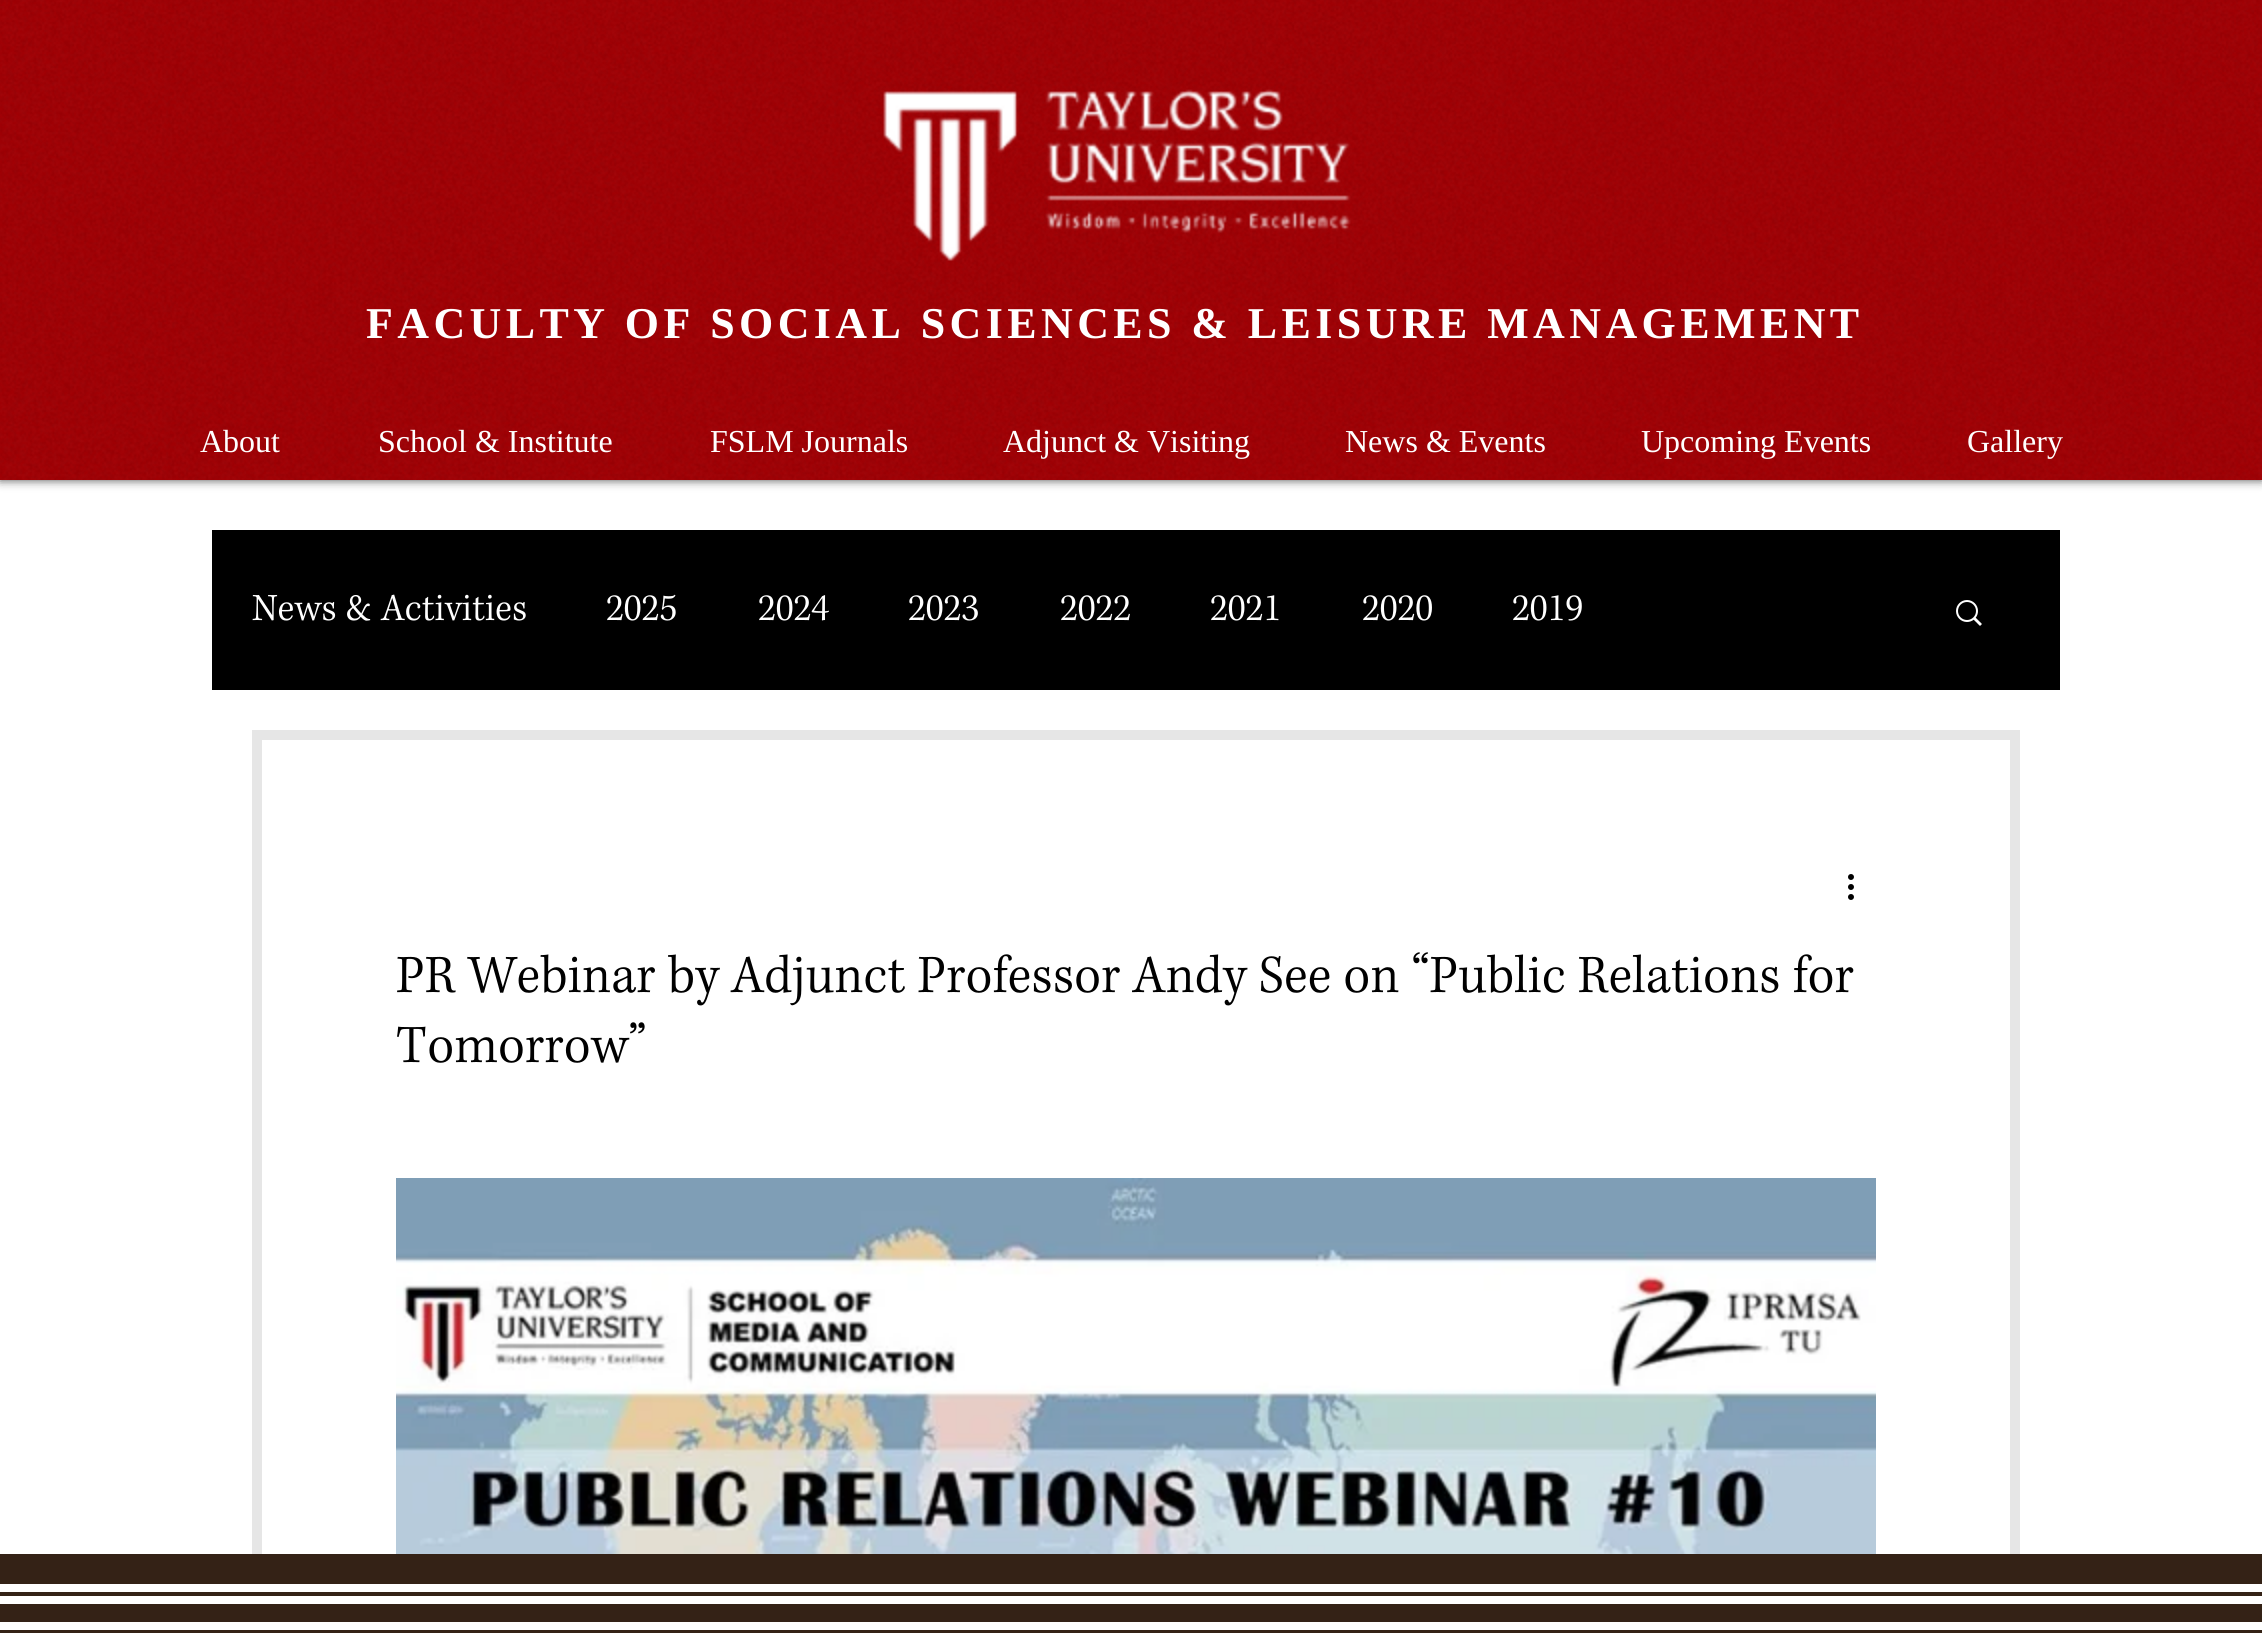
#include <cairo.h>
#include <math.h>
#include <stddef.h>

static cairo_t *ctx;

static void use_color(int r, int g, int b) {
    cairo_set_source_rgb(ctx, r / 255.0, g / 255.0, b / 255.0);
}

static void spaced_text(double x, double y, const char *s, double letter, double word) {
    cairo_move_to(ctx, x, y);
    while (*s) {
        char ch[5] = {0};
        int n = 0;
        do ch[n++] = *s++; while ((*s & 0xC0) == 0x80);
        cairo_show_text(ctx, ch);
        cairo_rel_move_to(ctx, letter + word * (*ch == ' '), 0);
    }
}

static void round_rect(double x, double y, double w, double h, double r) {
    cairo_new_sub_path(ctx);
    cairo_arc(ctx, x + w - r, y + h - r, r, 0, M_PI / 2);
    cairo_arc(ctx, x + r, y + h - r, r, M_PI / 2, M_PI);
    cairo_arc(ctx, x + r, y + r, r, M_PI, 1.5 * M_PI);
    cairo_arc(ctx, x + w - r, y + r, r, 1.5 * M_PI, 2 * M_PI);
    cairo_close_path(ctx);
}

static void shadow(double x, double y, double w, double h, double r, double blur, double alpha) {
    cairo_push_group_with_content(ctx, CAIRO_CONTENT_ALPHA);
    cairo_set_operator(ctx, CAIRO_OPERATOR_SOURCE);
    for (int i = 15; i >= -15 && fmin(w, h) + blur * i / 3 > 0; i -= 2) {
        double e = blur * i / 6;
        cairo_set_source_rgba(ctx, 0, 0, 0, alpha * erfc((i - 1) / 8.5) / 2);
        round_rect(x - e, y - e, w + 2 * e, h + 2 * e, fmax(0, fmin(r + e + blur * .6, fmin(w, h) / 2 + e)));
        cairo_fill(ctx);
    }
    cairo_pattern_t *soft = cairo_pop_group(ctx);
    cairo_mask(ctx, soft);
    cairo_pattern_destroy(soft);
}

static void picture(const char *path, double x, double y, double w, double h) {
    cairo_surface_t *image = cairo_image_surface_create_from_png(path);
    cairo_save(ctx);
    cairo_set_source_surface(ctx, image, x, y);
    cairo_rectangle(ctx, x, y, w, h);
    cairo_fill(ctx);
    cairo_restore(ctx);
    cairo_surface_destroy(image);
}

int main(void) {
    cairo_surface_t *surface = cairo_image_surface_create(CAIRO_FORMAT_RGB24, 2262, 1633);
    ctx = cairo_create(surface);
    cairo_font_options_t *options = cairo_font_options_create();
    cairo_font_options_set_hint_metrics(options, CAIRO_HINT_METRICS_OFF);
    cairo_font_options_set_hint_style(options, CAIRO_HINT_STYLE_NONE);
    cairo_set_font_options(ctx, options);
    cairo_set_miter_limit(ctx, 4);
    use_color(255, 255, 255);
    cairo_paint(ctx);
    use_color(0, 0, 0);
    shadow(0, 0, 2262, 480, 0, 5, 0.7);
    use_color(161, 0, 4);
    cairo_rectangle(ctx, 0, 0, 2262, 480);
    cairo_fill(ctx);
    picture("img1.png", 0, 0, 2262, 480);
    picture("img2.png", 883, 89, 468, 172);
    cairo_select_font_face(ctx, "Liberation Serif", CAIRO_FONT_SLANT_NORMAL, CAIRO_FONT_WEIGHT_BOLD);
    cairo_set_font_size(ctx, 44);
    use_color(255, 255, 255);
    spaced_text(366, 338, "FACULTY OF SOCIAL SCIENCES & LEISURE MANAGEMENT", 4.4, 0);
    cairo_select_font_face(ctx, "Liberation Serif", CAIRO_FONT_SLANT_NORMAL, CAIRO_FONT_WEIGHT_NORMAL);
    cairo_set_font_size(ctx, 32);
    cairo_move_to(ctx, 200, 452);
    cairo_show_text(ctx, "About");
    cairo_move_to(ctx, 378, 452);
    cairo_show_text(ctx, "School & Institute");
    cairo_move_to(ctx, 710, 452);
    cairo_show_text(ctx, "FSLM Journals");
    cairo_move_to(ctx, 1003, 452);
    cairo_show_text(ctx, "Adjunct & Visiting");
    cairo_move_to(ctx, 1345, 452);
    cairo_show_text(ctx, "News & Events");
    cairo_move_to(ctx, 1641, 452);
    cairo_show_text(ctx, "Upcoming Events");
    cairo_move_to(ctx, 1967, 452);
    cairo_show_text(ctx, "Gallery");
    use_color(0, 0, 0);
    cairo_rectangle(ctx, 212, 530, 1848, 160);
    cairo_fill(ctx);
    picture("img3.png", 252, 594, 274, 27);
    picture("img4.png", 607, 594, 69, 27);
    picture("img5.png", 759, 595, 70, 26);
    picture("img6.png", 909, 595, 69, 26);
    picture("img7.png", 1061, 595, 69, 26);
    picture("img8.png", 1211, 595, 68, 26);
    picture("img9.png", 1363, 595, 69, 26);
    picture("img10.png", 1513, 595, 69, 26);
    picture("img11.png", 1956, 600, 26, 26);
    cairo_rectangle(ctx, 257, 735, 1758, 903);
    use_color(230, 230, 230);
    cairo_set_line_width(ctx, 10);
    cairo_stroke(ctx);
    picture("img12.png", 1848, 874, 6, 26);
    picture("img13.png", 397, 952, 1457, 54);
    picture("img14.png", 397, 1022, 248, 41);
    picture("img15.png", 396, 1178, 1480, 376);
    use_color(52, 34, 22);
    cairo_rectangle(ctx, 0, 1554, 2262, 79);
    cairo_fill(ctx);
    use_color(255, 255, 255);
    cairo_rectangle(ctx, 0, 1584, 2262, 8);
    cairo_fill(ctx);
    cairo_rectangle(ctx, 0, 1596, 2262, 8);
    cairo_fill(ctx);
    cairo_rectangle(ctx, 0, 1622, 2262, 8);
    cairo_fill(ctx);
    cairo_surface_write_to_png(surface, "result.png");
    cairo_font_options_destroy(options);
    cairo_destroy(ctx);
    cairo_surface_destroy(surface);
    return 0;
}
